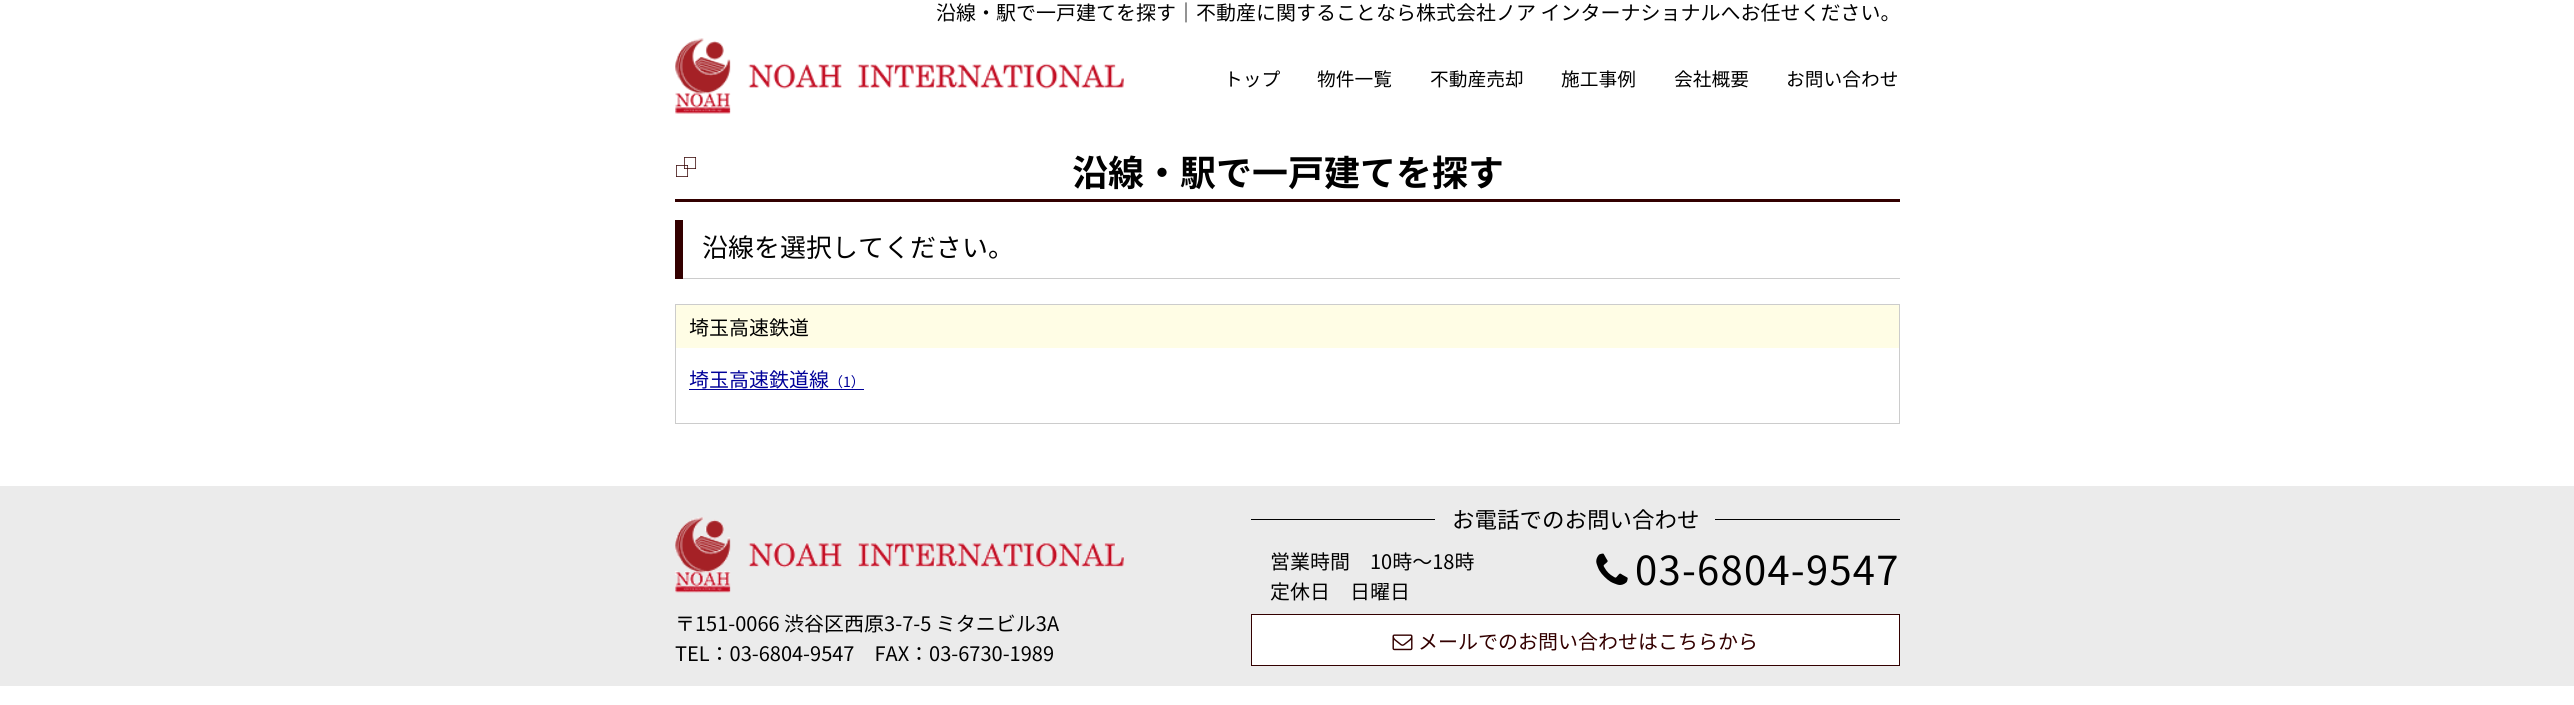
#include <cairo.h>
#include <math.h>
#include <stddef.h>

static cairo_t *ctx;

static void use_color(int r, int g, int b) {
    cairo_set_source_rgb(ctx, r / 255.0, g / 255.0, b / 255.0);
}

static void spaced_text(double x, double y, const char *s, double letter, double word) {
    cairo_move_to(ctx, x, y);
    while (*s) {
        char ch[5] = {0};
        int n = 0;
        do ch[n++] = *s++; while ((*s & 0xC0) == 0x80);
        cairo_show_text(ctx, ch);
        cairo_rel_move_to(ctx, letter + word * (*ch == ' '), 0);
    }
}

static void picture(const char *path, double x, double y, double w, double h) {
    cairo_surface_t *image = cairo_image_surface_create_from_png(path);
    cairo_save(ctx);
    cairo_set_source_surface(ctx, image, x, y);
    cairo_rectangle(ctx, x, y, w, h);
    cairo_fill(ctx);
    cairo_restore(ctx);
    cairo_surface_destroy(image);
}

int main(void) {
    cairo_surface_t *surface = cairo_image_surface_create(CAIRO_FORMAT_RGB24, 2574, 705);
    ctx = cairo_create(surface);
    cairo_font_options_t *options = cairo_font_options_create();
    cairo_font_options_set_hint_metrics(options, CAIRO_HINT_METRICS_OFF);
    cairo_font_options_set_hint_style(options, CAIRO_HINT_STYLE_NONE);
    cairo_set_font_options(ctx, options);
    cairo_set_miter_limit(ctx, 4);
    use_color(255, 255, 255);
    cairo_paint(ctx);
    cairo_select_font_face(ctx, "Noto Sans JP", CAIRO_FONT_SLANT_NORMAL, CAIRO_FONT_WEIGHT_NORMAL);
    cairo_set_font_size(ctx, 20);
    use_color(0, 0, 0);
    cairo_move_to(ctx, 936, 20);
    cairo_show_text(ctx, "沿線・駅で一戸建てを探す｜不動産に関することなら株式会社ノア インターナショナルへお任せください。");
    picture("img1.png", 675, 38, 449, 76);
    cairo_set_font_size(ctx, 18.75);
    cairo_move_to(ctx, 1224, 86);
    cairo_show_text(ctx, "トップ");
    cairo_move_to(ctx, 1317, 86);
    cairo_show_text(ctx, "物件一覧");
    cairo_move_to(ctx, 1430, 86);
    cairo_show_text(ctx, "不動産売却");
    cairo_move_to(ctx, 1561, 86);
    cairo_show_text(ctx, "施工事例");
    cairo_move_to(ctx, 1674, 86);
    cairo_show_text(ctx, "会社概要");
    cairo_move_to(ctx, 1786, 86);
    cairo_show_text(ctx, "お問い合わせ");
    use_color(51, 0, 0);
    cairo_rectangle(ctx, 675, 199, 1225, 3);
    cairo_fill(ctx);
    cairo_select_font_face(ctx, "Liberation Sans", CAIRO_FONT_SLANT_NORMAL, CAIRO_FONT_WEIGHT_BOLD);
    cairo_set_font_size(ctx, 20);
    cairo_move_to(ctx, 684, 169);
    cairo_show_text(ctx, "□");
    cairo_select_font_face(ctx, "Noto Sans JP", CAIRO_FONT_SLANT_NORMAL, CAIRO_FONT_WEIGHT_BOLD);
    cairo_set_font_size(ctx, 36);
    use_color(0, 0, 0);
    cairo_move_to(ctx, 1072, 186);
    cairo_show_text(ctx, "沿線・駅で一戸建てを探す");
    cairo_select_font_face(ctx, "Liberation Sans", CAIRO_FONT_SLANT_NORMAL, CAIRO_FONT_WEIGHT_BOLD);
    cairo_set_font_size(ctx, 20);
    use_color(51, 0, 0);
    cairo_move_to(ctx, 676, 177);
    cairo_show_text(ctx, "□");
    cairo_rectangle(ctx, 675, 220, 8, 59);
    cairo_fill(ctx);
    cairo_select_font_face(ctx, "Noto Sans JP", CAIRO_FONT_SLANT_NORMAL, CAIRO_FONT_WEIGHT_NORMAL);
    cairo_set_font_size(ctx, 26);
    use_color(0, 0, 0);
    cairo_move_to(ctx, 702, 257);
    cairo_show_text(ctx, "沿線を選択してください。");
    use_color(204, 204, 204);
    cairo_rectangle(ctx, 683, 278, 1217, 1);
    cairo_fill(ctx);
    cairo_rectangle(ctx, 675.5, 304.5, 1224, 119);
    cairo_set_line_width(ctx, 1);
    cairo_stroke(ctx);
    use_color(255, 253, 229);
    cairo_rectangle(ctx, 676, 305, 1223, 43);
    cairo_fill(ctx);
    cairo_set_font_size(ctx, 20);
    use_color(0, 0, 0);
    cairo_move_to(ctx, 689, 335);
    cairo_show_text(ctx, "埼玉高速鉄道");
    use_color(0, 0, 153);
    cairo_move_to(ctx, 689, 387);
    cairo_show_text(ctx, "埼玉高速鉄道線");
    cairo_set_font_size(ctx, 14);
    cairo_move_to(ctx, 829, 387);
    cairo_show_text(ctx, "（1）");
    cairo_rectangle(ctx, 689, 389, 175, 1);
    cairo_fill(ctx);
    use_color(235, 235, 235);
    cairo_rectangle(ctx, 0, 486, 2574, 200);
    cairo_fill(ctx);
    picture("img2.png", 675, 517, 449, 76);
    cairo_set_font_size(ctx, 20);
    use_color(0, 0, 0);
    cairo_move_to(ctx, 675, 631);
    cairo_show_text(ctx, "〒151-0066 渋谷区西原3-7-5 ミタニビル3A");
    cairo_move_to(ctx, 675, 661);
    cairo_show_text(ctx, "TEL：03-6804-9547　FAX：03-6730-1989");
    cairo_rectangle(ctx, 1251, 519, 649, 1);
    cairo_fill(ctx);
    use_color(235, 235, 235);
    cairo_rectangle(ctx, 1435, 519, 280, 1);
    cairo_fill(ctx);
    cairo_set_font_size(ctx, 22.5);
    use_color(0, 0, 0);
    cairo_move_to(ctx, 1452, 528);
    cairo_show_text(ctx, "お電話でのお問い合わせ");
    cairo_set_font_size(ctx, 20);
    cairo_move_to(ctx, 1270, 569);
    cairo_show_text(ctx, "営業時間　10時〜18時");
    cairo_move_to(ctx, 1270, 599);
    cairo_show_text(ctx, "定休日　日曜日");
    picture("img3.png", 1596, 553, 32, 32);
    cairo_set_font_size(ctx, 40);
    spaced_text(1635, 585, "03-6804-9547", 1.25, 0);
    use_color(255, 255, 255);
    cairo_rectangle(ctx, 1251.5, 614.5, 648, 51);
    cairo_fill_preserve(ctx);
    use_color(51, 0, 0);
    cairo_stroke(ctx);
    picture("img4.png", 1392, 634, 21, 17);
    cairo_set_font_size(ctx, 20);
    cairo_move_to(ctx, 1418, 649);
    cairo_show_text(ctx, "メールでのお問い合わせはこちらから");
    cairo_surface_write_to_png(surface, "result.png");
    cairo_font_options_destroy(options);
    cairo_destroy(ctx);
    cairo_surface_destroy(surface);
    return 0;
}
